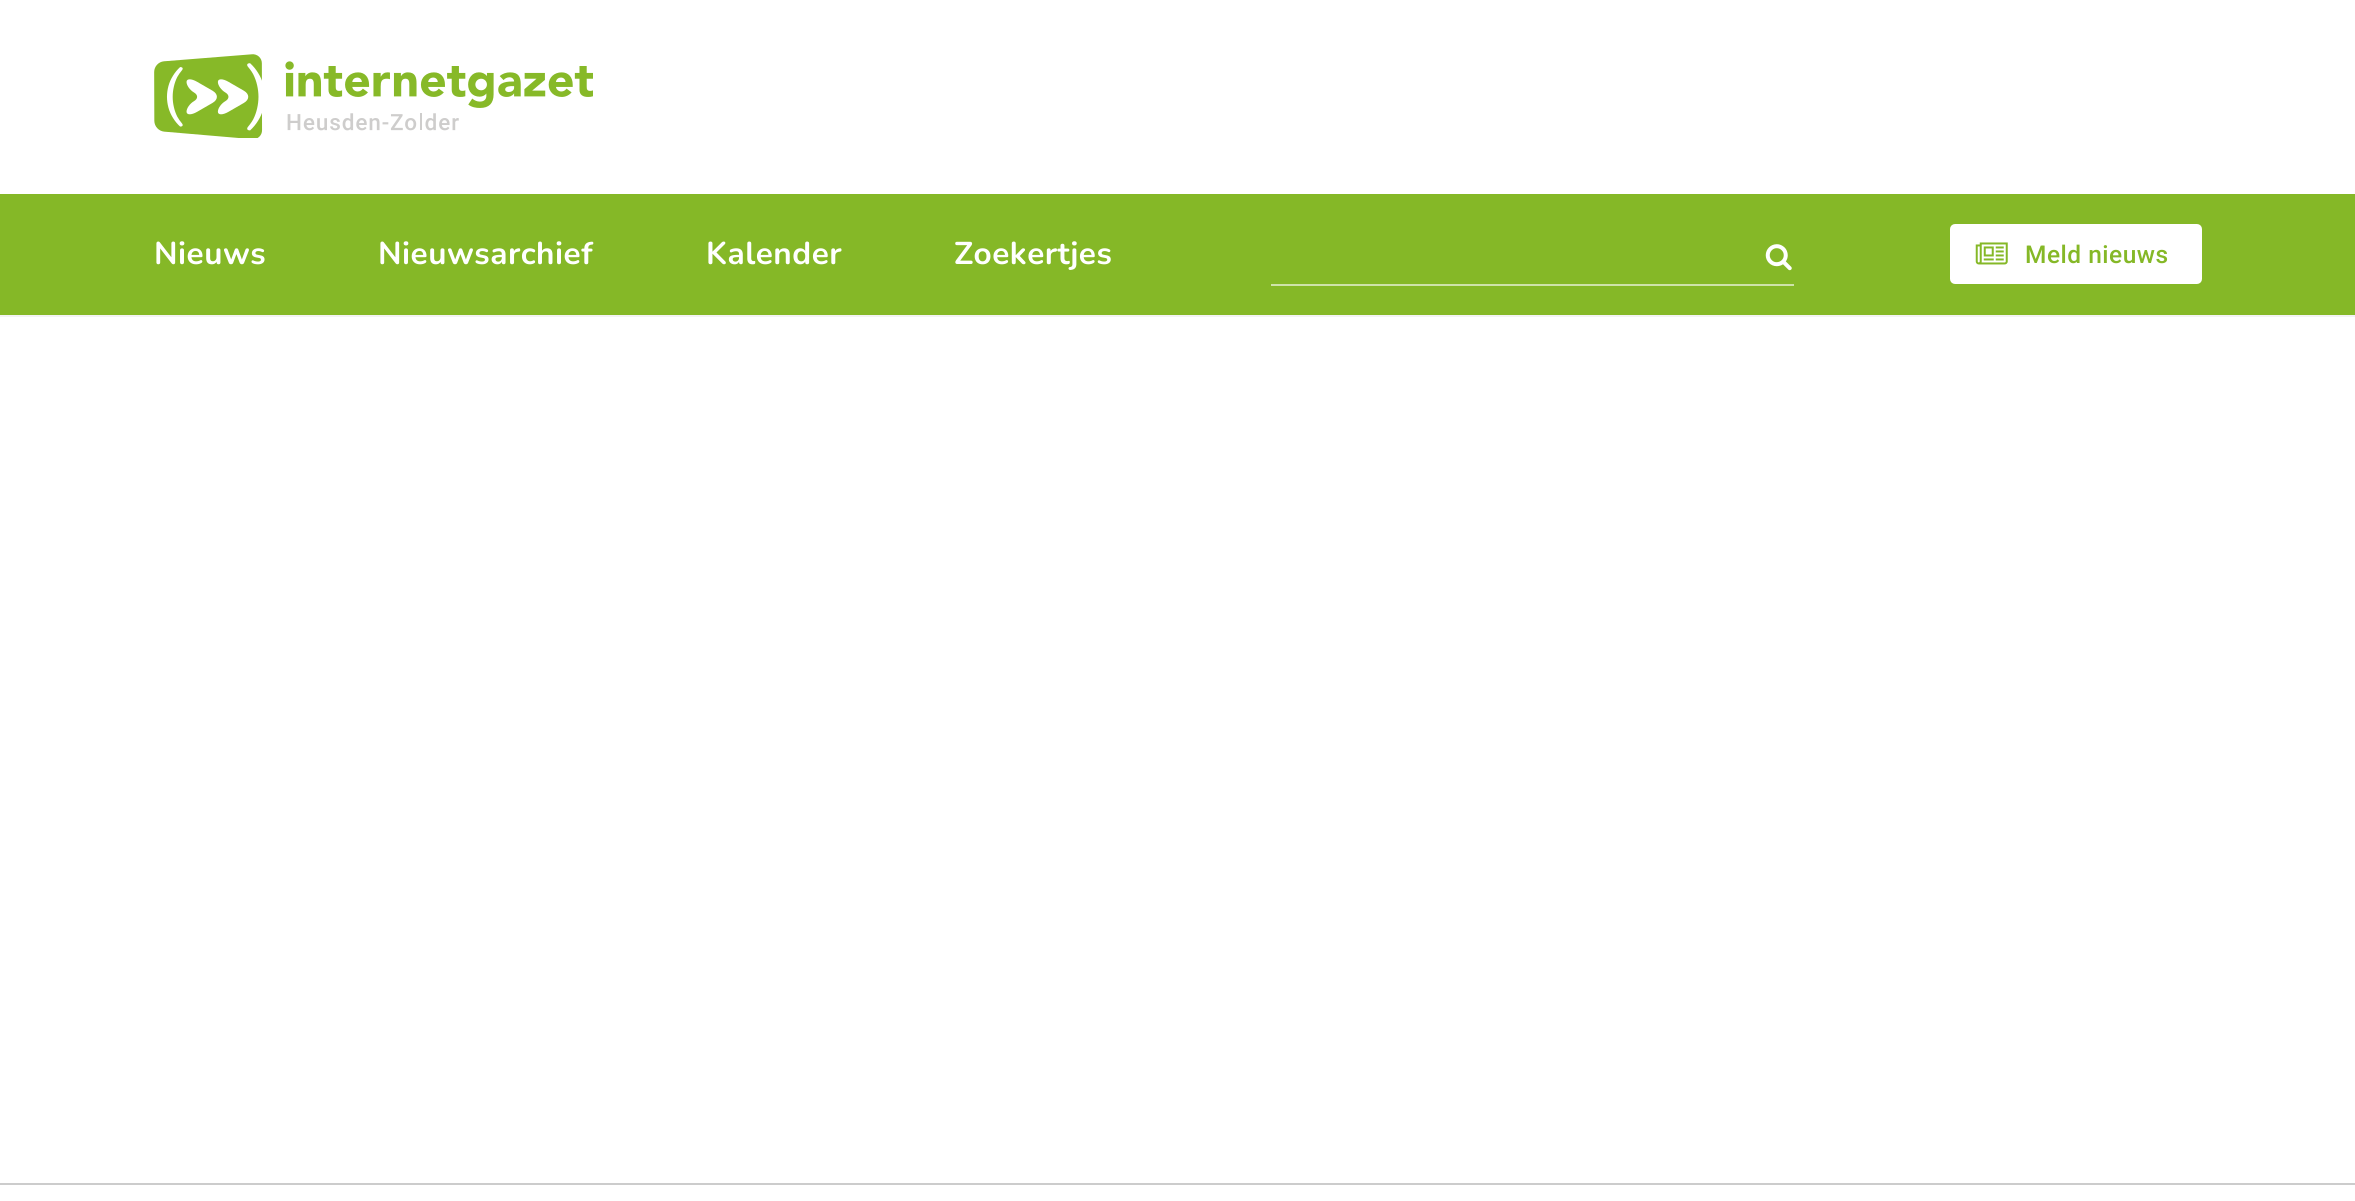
#include <cairo.h>
#include <math.h>
#include <stddef.h>

static cairo_t *ctx;

static void use_color(int r, int g, int b) {
    cairo_set_source_rgb(ctx, r / 255.0, g / 255.0, b / 255.0);
}

static void spaced_text(double x, double y, const char *s, double letter, double word) {
    cairo_move_to(ctx, x, y);
    while (*s) {
        char ch[5] = {0};
        int n = 0;
        do ch[n++] = *s++; while ((*s & 0xC0) == 0x80);
        cairo_show_text(ctx, ch);
        cairo_rel_move_to(ctx, letter + word * (*ch == ' '), 0);
    }
}

static void round_rect(double x, double y, double w, double h, double r) {
    cairo_new_sub_path(ctx);
    cairo_arc(ctx, x + w - r, y + h - r, r, 0, M_PI / 2);
    cairo_arc(ctx, x + r, y + h - r, r, M_PI / 2, M_PI);
    cairo_arc(ctx, x + r, y + r, r, M_PI, 1.5 * M_PI);
    cairo_arc(ctx, x + w - r, y + r, r, 1.5 * M_PI, 2 * M_PI);
    cairo_close_path(ctx);
}

static void picture(const char *path, double x, double y, double w, double h) {
    cairo_surface_t *image = cairo_image_surface_create_from_png(path);
    cairo_save(ctx);
    cairo_set_source_surface(ctx, image, x, y);
    cairo_rectangle(ctx, x, y, w, h);
    cairo_fill(ctx);
    cairo_restore(ctx);
    cairo_surface_destroy(image);
}

int main(void) {
    cairo_surface_t *surface = cairo_image_surface_create(CAIRO_FORMAT_RGB24, 2355, 1201);
    ctx = cairo_create(surface);
    cairo_font_options_t *options = cairo_font_options_create();
    cairo_font_options_set_hint_metrics(options, CAIRO_HINT_METRICS_OFF);
    cairo_font_options_set_hint_style(options, CAIRO_HINT_STYLE_NONE);
    cairo_set_font_options(ctx, options);
    cairo_set_miter_limit(ctx, 4);
    use_color(255, 255, 255);
    cairo_paint(ctx);
    picture("img1.png", 154, 54, 439, 84);
    use_color(133, 184, 39);
    cairo_rectangle(ctx, 0, 194, 2355, 121);
    cairo_fill(ctx);
    use_color(243, 243, 243);
    cairo_rectangle(ctx, 0, 315, 2355, 2);
    cairo_fill(ctx);
    cairo_select_font_face(ctx, "Nunito", CAIRO_FONT_SLANT_NORMAL, CAIRO_FONT_WEIGHT_BOLD);
    cairo_set_font_size(ctx, 31.5);
    use_color(255, 255, 255);
    spaced_text(154, 264, "Nieuws", 0.5, 0);
    spaced_text(378, 264, "Nieuwsarchief", 0.5, 0);
    spaced_text(706, 264, "Kalender", 0.5, 0);
    spaced_text(954, 264, "Zoekertjes", 0.5, 0);
    use_color(206, 227, 169);
    cairo_rectangle(ctx, 1271, 284, 523, 2);
    cairo_fill(ctx);
    picture("img2.png", 1765, 244, 27, 27);
    use_color(255, 255, 255);
    round_rect(1952, 226, 248, 56, 3);
    cairo_fill_preserve(ctx);
    cairo_set_line_width(ctx, 4);
    cairo_stroke(ctx);
    picture("img3.png", 1975, 242, 33, 23);
    cairo_select_font_face(ctx, "Roboto Medium", CAIRO_FONT_SLANT_NORMAL, CAIRO_FONT_WEIGHT_NORMAL);
    cairo_set_font_size(ctx, 24.5);
    use_color(133, 184, 39);
    spaced_text(2025, 263, "Meld nieuws", 0.5, 0);
    use_color(204, 204, 204);
    cairo_rectangle(ctx, 0, 1183, 2355, 2);
    cairo_fill(ctx);
    cairo_surface_write_to_png(surface, "result.png");
    cairo_font_options_destroy(options);
    cairo_destroy(ctx);
    cairo_surface_destroy(surface);
    return 0;
}
